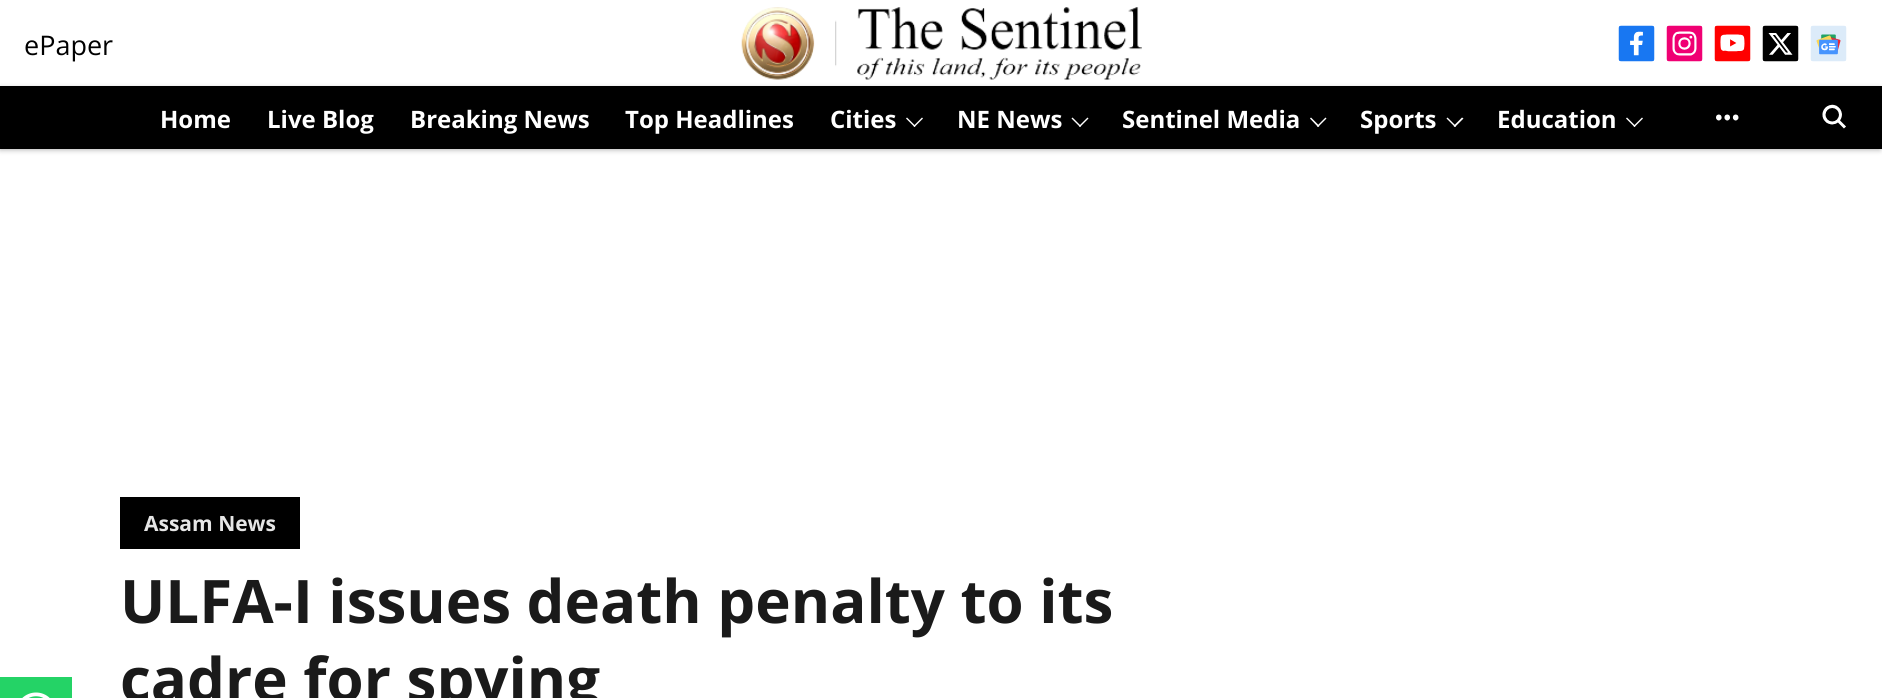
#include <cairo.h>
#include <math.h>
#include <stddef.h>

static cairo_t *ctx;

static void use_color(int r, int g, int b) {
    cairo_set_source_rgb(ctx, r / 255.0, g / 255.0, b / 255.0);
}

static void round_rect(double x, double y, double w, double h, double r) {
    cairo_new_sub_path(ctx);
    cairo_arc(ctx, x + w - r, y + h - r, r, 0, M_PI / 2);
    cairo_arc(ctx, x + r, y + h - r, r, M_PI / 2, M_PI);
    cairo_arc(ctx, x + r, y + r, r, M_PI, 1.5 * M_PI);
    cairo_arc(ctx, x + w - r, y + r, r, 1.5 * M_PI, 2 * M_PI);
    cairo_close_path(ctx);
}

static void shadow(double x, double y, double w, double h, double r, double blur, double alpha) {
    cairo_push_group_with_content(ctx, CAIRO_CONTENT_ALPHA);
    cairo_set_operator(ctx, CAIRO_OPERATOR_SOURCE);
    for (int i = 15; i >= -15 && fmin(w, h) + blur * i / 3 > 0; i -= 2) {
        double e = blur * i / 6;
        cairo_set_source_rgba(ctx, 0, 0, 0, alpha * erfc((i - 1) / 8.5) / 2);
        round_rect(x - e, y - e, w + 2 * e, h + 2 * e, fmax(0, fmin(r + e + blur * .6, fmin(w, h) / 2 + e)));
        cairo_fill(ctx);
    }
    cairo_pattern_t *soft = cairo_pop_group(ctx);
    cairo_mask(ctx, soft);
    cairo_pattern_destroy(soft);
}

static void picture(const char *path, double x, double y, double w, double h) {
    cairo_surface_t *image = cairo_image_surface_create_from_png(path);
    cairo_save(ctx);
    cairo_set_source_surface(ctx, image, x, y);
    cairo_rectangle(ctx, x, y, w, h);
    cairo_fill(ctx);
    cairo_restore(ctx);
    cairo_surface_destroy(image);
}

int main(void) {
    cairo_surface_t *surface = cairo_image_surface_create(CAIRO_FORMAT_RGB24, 1882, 698);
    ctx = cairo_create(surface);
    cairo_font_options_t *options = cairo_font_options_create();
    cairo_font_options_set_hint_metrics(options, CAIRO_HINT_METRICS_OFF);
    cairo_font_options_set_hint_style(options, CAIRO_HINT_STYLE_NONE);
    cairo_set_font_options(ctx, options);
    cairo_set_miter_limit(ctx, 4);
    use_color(255, 255, 255);
    cairo_paint(ctx);
    cairo_select_font_face(ctx, "Open Sans", CAIRO_FONT_SLANT_NORMAL, CAIRO_FONT_WEIGHT_NORMAL);
    cairo_set_font_size(ctx, 27);
    use_color(0, 0, 0);
    cairo_move_to(ctx, 24, 55);
    cairo_show_text(ctx, "ePaper");
    picture("img1.png", 741, 7, 401, 73);
    picture("img2.png", 1618, 25, 37, 37);
    picture("img3.png", 1666, 25, 37, 37);
    picture("img4.png", 1714, 25, 37, 37);
    picture("img5.png", 1762, 25, 37, 37);
    picture("img6.png", 1810, 25, 37, 37);
    use_color(0, 0, 0);
    shadow(0, 89, 1880, 60, 0, 3, 0.39);
    use_color(0, 0, 0);
    cairo_rectangle(ctx, 0, 86, 1882, 63);
    cairo_fill(ctx);
    cairo_select_font_face(ctx, "Open Sans", CAIRO_FONT_SLANT_NORMAL, CAIRO_FONT_WEIGHT_BOLD);
    cairo_set_font_size(ctx, 24);
    use_color(255, 255, 255);
    cairo_move_to(ctx, 160, 128);
    cairo_show_text(ctx, "Home");
    cairo_move_to(ctx, 267, 128);
    cairo_show_text(ctx, "Live Blog");
    cairo_move_to(ctx, 410, 128);
    cairo_show_text(ctx, "Breaking News");
    cairo_move_to(ctx, 625, 128);
    cairo_show_text(ctx, "Top Headlines");
    cairo_move_to(ctx, 830, 128);
    cairo_show_text(ctx, "Cities");
    cairo_new_path(ctx);
    cairo_move_to(ctx, 922, 117.5);
    cairo_line_to(ctx, 923, 118.5);
    cairo_line_to(ctx, 914.5, 127);
    cairo_line_to(ctx, 913.5, 126);
    cairo_close_path(ctx);
    cairo_fill(ctx);
    cairo_new_path(ctx);
    cairo_move_to(ctx, 907, 117.5);
    cairo_line_to(ctx, 915.5, 126);
    cairo_line_to(ctx, 914.5, 127);
    cairo_line_to(ctx, 906, 118.5);
    cairo_close_path(ctx);
    cairo_fill(ctx);
    cairo_move_to(ctx, 957, 128);
    cairo_show_text(ctx, "NE News");
    cairo_new_path(ctx);
    cairo_move_to(ctx, 1087.5, 117.5);
    cairo_line_to(ctx, 1088.5, 118.5);
    cairo_line_to(ctx, 1080, 127);
    cairo_line_to(ctx, 1079, 126);
    cairo_close_path(ctx);
    cairo_fill(ctx);
    cairo_new_path(ctx);
    cairo_move_to(ctx, 1072.5, 117.5);
    cairo_line_to(ctx, 1081, 126);
    cairo_line_to(ctx, 1080, 127);
    cairo_line_to(ctx, 1071.5, 118.5);
    cairo_close_path(ctx);
    cairo_fill(ctx);
    cairo_move_to(ctx, 1122, 128);
    cairo_show_text(ctx, "Sentinel Media");
    cairo_new_path(ctx);
    cairo_move_to(ctx, 1325.5, 117.5);
    cairo_line_to(ctx, 1326.5, 118.5);
    cairo_line_to(ctx, 1318, 127);
    cairo_line_to(ctx, 1317, 126);
    cairo_close_path(ctx);
    cairo_fill(ctx);
    cairo_new_path(ctx);
    cairo_move_to(ctx, 1311, 117.5);
    cairo_line_to(ctx, 1319.5, 126);
    cairo_line_to(ctx, 1318, 127);
    cairo_line_to(ctx, 1310, 118.5);
    cairo_close_path(ctx);
    cairo_fill(ctx);
    cairo_move_to(ctx, 1360, 128);
    cairo_show_text(ctx, "Sports");
    cairo_new_path(ctx);
    cairo_move_to(ctx, 1462, 117.5);
    cairo_line_to(ctx, 1463.5, 118.5);
    cairo_line_to(ctx, 1455, 127);
    cairo_line_to(ctx, 1453.5, 126);
    cairo_close_path(ctx);
    cairo_fill(ctx);
    cairo_new_path(ctx);
    cairo_move_to(ctx, 1447.5, 117.5);
    cairo_line_to(ctx, 1456, 126);
    cairo_line_to(ctx, 1455, 127);
    cairo_line_to(ctx, 1446.5, 118.5);
    cairo_close_path(ctx);
    cairo_fill(ctx);
    cairo_move_to(ctx, 1497, 128);
    cairo_show_text(ctx, "Education");
    cairo_new_path(ctx);
    cairo_move_to(ctx, 1642, 117.5);
    cairo_line_to(ctx, 1643, 118.5);
    cairo_line_to(ctx, 1634.5, 127);
    cairo_line_to(ctx, 1633.5, 126);
    cairo_close_path(ctx);
    cairo_fill(ctx);
    cairo_new_path(ctx);
    cairo_move_to(ctx, 1627, 117.5);
    cairo_line_to(ctx, 1635.5, 126);
    cairo_line_to(ctx, 1634.5, 127);
    cairo_line_to(ctx, 1626, 118.5);
    cairo_close_path(ctx);
    cairo_fill(ctx);
    picture("img7.png", 1716, 114, 23, 7);
    picture("img8.png", 1822, 104, 24, 25);
    use_color(36, 211, 102);
    cairo_rectangle(ctx, 0, 677, 72, 21);
    cairo_fill(ctx);
    picture("img9.png", 22, 692, 28, 6);
    use_color(0, 0, 0);
    cairo_rectangle(ctx, 120, 497, 180, 52);
    cairo_fill(ctx);
    cairo_set_font_size(ctx, 21);
    use_color(230, 230, 230);
    cairo_move_to(ctx, 144, 531);
    cairo_show_text(ctx, "Assam News");
    cairo_set_font_size(ctx, 60);
    use_color(26, 26, 26);
    cairo_move_to(ctx, 120, 623);
    cairo_show_text(ctx, "ULFA-I issues death penalty to its");
    cairo_move_to(ctx, 120, 701);
    cairo_show_text(ctx, "cadre for spying");
    cairo_surface_write_to_png(surface, "result.png");
    cairo_font_options_destroy(options);
    cairo_destroy(ctx);
    cairo_surface_destroy(surface);
    return 0;
}
